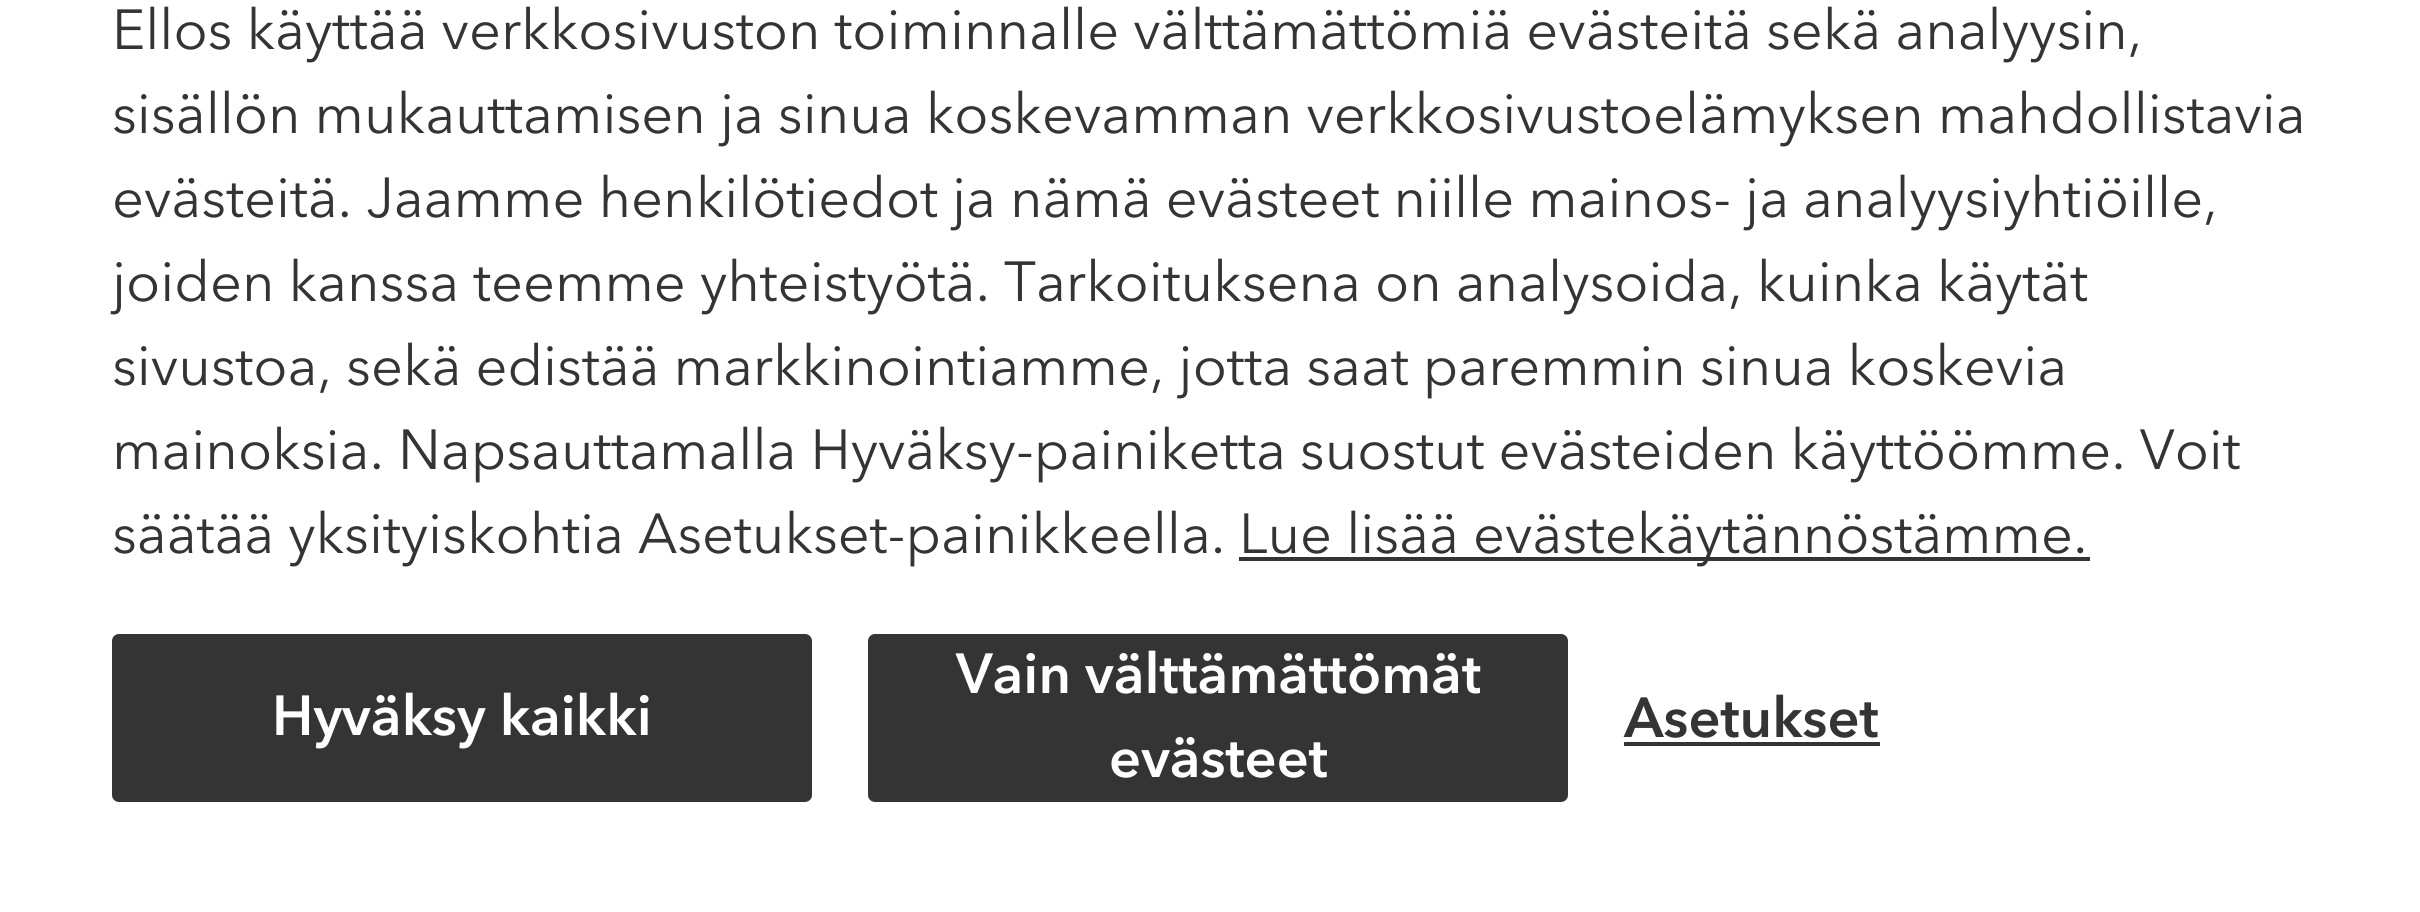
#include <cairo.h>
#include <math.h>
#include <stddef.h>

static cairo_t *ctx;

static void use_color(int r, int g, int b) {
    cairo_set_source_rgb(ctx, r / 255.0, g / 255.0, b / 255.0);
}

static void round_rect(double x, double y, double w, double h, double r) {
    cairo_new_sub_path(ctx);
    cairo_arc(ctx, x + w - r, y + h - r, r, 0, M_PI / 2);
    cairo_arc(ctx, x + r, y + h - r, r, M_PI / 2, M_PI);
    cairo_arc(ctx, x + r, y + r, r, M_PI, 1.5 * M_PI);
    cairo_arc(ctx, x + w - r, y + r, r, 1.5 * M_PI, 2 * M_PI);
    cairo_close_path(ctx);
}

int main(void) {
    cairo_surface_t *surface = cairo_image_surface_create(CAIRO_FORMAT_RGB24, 2420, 912);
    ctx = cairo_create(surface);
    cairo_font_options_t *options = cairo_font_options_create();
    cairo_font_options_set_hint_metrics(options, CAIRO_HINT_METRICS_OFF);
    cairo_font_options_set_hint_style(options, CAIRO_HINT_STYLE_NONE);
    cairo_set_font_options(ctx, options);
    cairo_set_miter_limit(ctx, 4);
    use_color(255, 255, 255);
    cairo_paint(ctx);
    cairo_select_font_face(ctx, "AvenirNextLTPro", CAIRO_FONT_SLANT_NORMAL, CAIRO_FONT_WEIGHT_NORMAL);
    cairo_set_font_size(ctx, 56);
    use_color(52, 52, 52);
    cairo_move_to(ctx, 112, 49);
    cairo_show_text(ctx, "Ellos käyttää verkkosivuston toiminnalle välttämättömiä evästeitä sekä analyysin,");
    cairo_move_to(ctx, 112, 133);
    cairo_show_text(ctx, "sisällön mukauttamisen ja sinua koskevamman verkkosivustoelämyksen mahdollistavia");
    cairo_move_to(ctx, 112, 217);
    cairo_show_text(ctx, "evästeitä. Jaamme henkilötiedot ja nämä evästeet niille mainos- ja analyysiyhtiöille,");
    cairo_move_to(ctx, 112, 301);
    cairo_show_text(ctx, "joiden kanssa teemme yhteistyötä. Tarkoituksena on analysoida, kuinka käytät");
    cairo_move_to(ctx, 112, 385);
    cairo_show_text(ctx, "sivustoa, sekä edistää markkinointiamme, jotta saat paremmin sinua koskevia");
    cairo_move_to(ctx, 112, 469);
    cairo_show_text(ctx, "mainoksia. Napsauttamalla Hyväksy-painiketta suostut evästeiden käyttöömme. Voit");
    cairo_move_to(ctx, 112, 553);
    cairo_show_text(ctx, "säätää yksityiskohtia Asetukset-painikkeella.");
    cairo_rectangle(ctx, 1239, 557, 851, 4);
    cairo_fill(ctx);
    cairo_move_to(ctx, 1239, 553);
    cairo_show_text(ctx, "Lue lisää evästekäytännöstämme.");
    round_rect(112, 634, 700, 168, 7);
    cairo_fill(ctx);
    cairo_select_font_face(ctx, "AvenirNextLTPro", CAIRO_FONT_SLANT_NORMAL, CAIRO_FONT_WEIGHT_BOLD);
    use_color(255, 255, 255);
    cairo_move_to(ctx, 272, 735);
    cairo_show_text(ctx, "Hyväksy kaikki");
    use_color(52, 52, 52);
    round_rect(868, 634, 700, 168, 7);
    cairo_fill(ctx);
    use_color(255, 255, 255);
    cairo_move_to(ctx, 956, 693);
    cairo_show_text(ctx, "Vain välttämättömät");
    cairo_move_to(ctx, 1109, 777);
    cairo_show_text(ctx, "evästeet");
    use_color(52, 52, 52);
    cairo_move_to(ctx, 1624, 737);
    cairo_show_text(ctx, "Asetukset");
    cairo_rectangle(ctx, 1624, 742, 256, 4);
    cairo_fill(ctx);
    cairo_surface_write_to_png(surface, "result.png");
    cairo_font_options_destroy(options);
    cairo_destroy(ctx);
    cairo_surface_destroy(surface);
    return 0;
}
